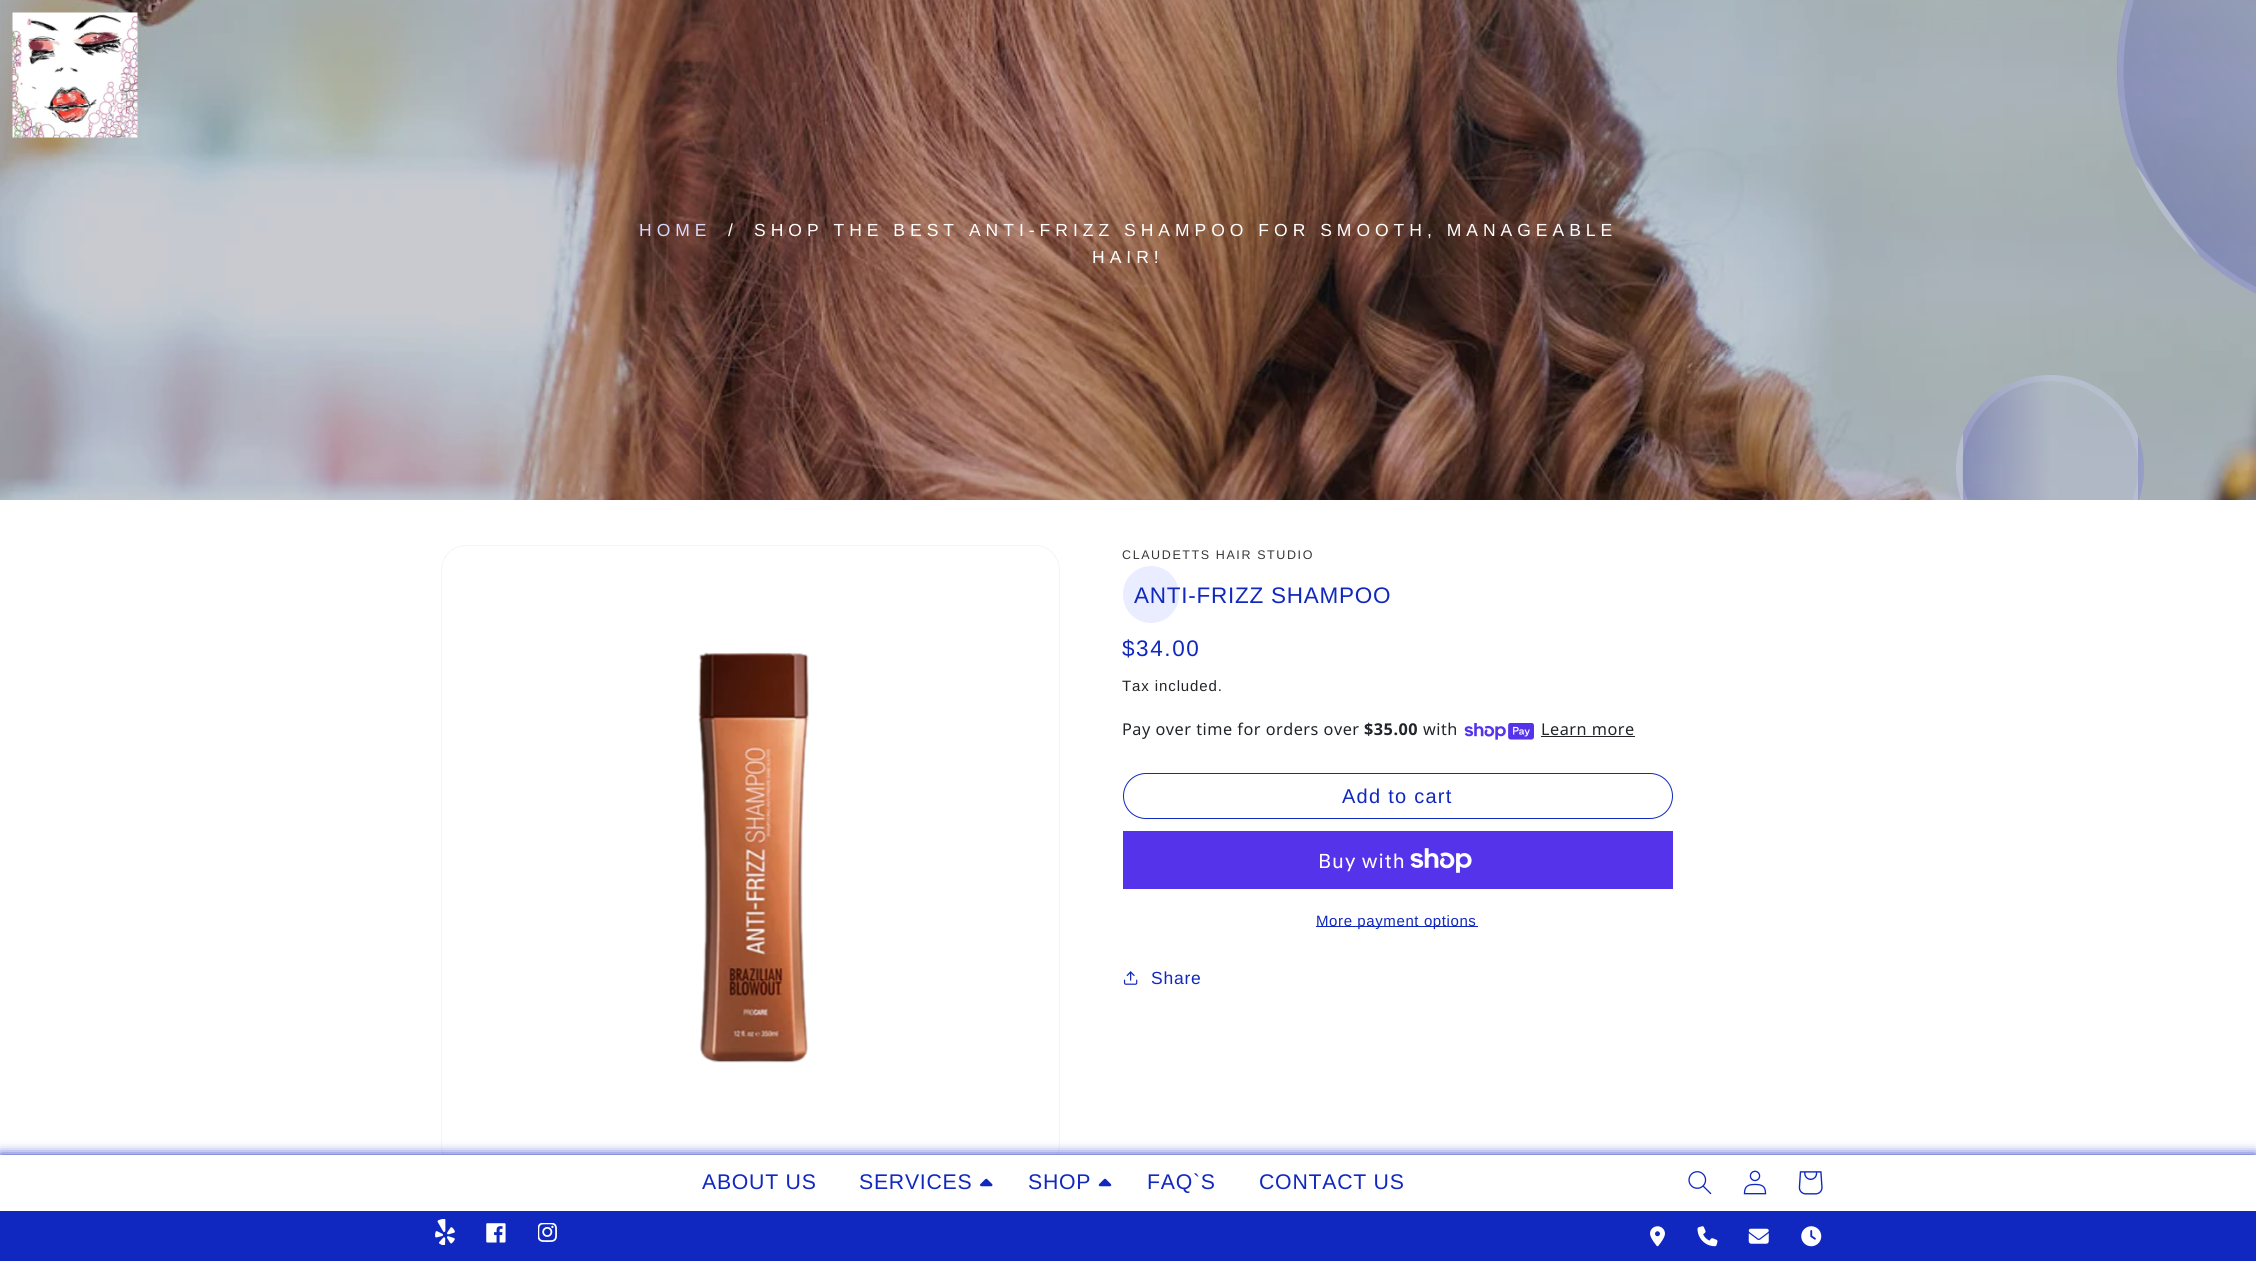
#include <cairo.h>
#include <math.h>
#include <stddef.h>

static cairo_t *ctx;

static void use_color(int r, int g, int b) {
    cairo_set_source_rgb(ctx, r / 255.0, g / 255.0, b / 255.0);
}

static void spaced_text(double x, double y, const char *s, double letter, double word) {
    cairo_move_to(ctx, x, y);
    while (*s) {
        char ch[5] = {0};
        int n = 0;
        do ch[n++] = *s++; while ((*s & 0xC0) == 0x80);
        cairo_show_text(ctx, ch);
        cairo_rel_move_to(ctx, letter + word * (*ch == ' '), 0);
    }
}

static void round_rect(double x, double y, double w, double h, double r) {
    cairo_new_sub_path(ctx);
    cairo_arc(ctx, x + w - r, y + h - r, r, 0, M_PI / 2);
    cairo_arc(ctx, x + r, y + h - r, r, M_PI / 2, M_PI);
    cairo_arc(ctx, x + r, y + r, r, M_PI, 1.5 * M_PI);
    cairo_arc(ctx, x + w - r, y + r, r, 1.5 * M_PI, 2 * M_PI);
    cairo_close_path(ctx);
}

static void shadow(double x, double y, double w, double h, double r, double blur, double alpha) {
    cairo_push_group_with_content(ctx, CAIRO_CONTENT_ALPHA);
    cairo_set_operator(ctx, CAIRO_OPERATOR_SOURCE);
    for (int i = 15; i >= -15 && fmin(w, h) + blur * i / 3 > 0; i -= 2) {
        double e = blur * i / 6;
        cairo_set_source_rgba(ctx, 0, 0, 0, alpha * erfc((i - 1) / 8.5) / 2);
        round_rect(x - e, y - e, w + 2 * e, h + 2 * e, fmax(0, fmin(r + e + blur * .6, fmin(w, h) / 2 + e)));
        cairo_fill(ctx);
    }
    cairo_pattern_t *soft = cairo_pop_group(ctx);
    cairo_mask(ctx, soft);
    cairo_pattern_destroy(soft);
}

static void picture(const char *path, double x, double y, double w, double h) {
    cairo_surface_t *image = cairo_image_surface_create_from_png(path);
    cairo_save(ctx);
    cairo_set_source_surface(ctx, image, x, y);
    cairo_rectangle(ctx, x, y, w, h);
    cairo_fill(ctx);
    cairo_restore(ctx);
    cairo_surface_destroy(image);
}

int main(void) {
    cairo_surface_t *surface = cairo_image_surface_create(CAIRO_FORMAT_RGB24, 2256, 1261);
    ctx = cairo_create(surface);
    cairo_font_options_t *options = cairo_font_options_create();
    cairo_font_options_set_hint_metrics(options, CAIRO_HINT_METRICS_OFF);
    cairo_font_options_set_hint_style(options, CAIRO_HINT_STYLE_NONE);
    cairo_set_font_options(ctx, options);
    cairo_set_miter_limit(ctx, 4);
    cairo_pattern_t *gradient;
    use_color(255, 255, 255);
    cairo_paint(ctx);
    picture("img1.png", 0, 0, 2256, 500);
    cairo_select_font_face(ctx, "Liberation Sans", CAIRO_FONT_SLANT_NORMAL, CAIRO_FONT_WEIGHT_NORMAL);
    cairo_set_font_size(ctx, 17.5);
    use_color(217, 218, 255);
    spaced_text(639, 236, "HOME", 5, 0);
    use_color(255, 255, 255);
    spaced_text(728, 236, "/", 5, 0);
    spaced_text(754, 236, "SHOP THE BEST ANTI-FRIZZ SHAMPOO FOR SMOOTH, MANAGEABLE", 5, 0);
    spaced_text(1092, 263, "HAIR!", 5, 0);
    cairo_new_path(ctx);
    cairo_move_to(ctx, 2225.5, -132);
    cairo_curve_to(ctx, 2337.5, -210.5, 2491.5, -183.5, 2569.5, -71.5);
    cairo_curve_to(ctx, 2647.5, 40, 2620.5, 194, 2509, 272);
    cairo_curve_to(ctx, 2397, 350.5, 2243, 323.5, 2165, 211.5);
    cairo_curve_to(ctx, 2087, 100, 2114, -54, 2225.5, -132);
    cairo_close_path(ctx);
    cairo_set_source_rgba(ctx, 0.851, 0.855, 1, 0.2);
    cairo_set_line_width(ctx, 6.2);
    cairo_stroke(ctx);
    cairo_save(ctx);
    round_rect(1956, 375, 188, 188, 94);
    cairo_clip(ctx);
    gradient = cairo_pattern_create_linear(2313, 469, 2138, 469);
    cairo_pattern_add_color_stop_rgba(gradient, 0.5, 0.69, 0.718, 0.769, 1);
    cairo_pattern_add_color_stop_rgba(gradient, 1, 0.522, 0.549, 0.71, 1);
    cairo_set_source(ctx, gradient);
    cairo_pattern_destroy(gradient);
    cairo_rectangle(ctx, 2138, 436, 6, 64);
    cairo_fill(ctx);
    cairo_restore(ctx);
    cairo_save(ctx);
    cairo_rectangle(ctx, 0, 0, 2256, 500);
    cairo_clip(ctx);
    cairo_arc(ctx, 2050, 469, 91, 0, 2 * M_PI);
    cairo_set_line_width(ctx, 6);
    cairo_stroke(ctx);
    cairo_restore(ctx);
    round_rect(441.5, 545.5, 618, 624, 24.5);
    use_color(243, 244, 252);
    cairo_set_line_width(ctx, 1);
    cairo_stroke(ctx);
    picture("img2.png", 698, 652, 111, 411);
    cairo_set_font_size(ctx, 12.5);
    use_color(56, 56, 56);
    spaced_text(1122, 559, "CLAUDETTS HAIR STUDIO", 1.6, 0);
    use_color(234, 237, 255);
    round_rect(1123, 566, 56, 57, 28);
    cairo_fill(ctx);
    cairo_set_font_size(ctx, 22.5);
    use_color(16, 40, 191);
    spaced_text(1134, 603, "ANTI-FRIZZ SHAMPOO", 0.75, 0);
    spaced_text(1122, 656, "$34.00", 1.6, 0);
    cairo_set_font_size(ctx, 15);
    use_color(33, 37, 41);
    spaced_text(1122, 691, "Tax included.", 0.9, 0);
    cairo_select_font_face(ctx, "Noto Sans", CAIRO_FONT_SLANT_NORMAL, CAIRO_FONT_WEIGHT_NORMAL);
    cairo_set_font_size(ctx, 16.25);
    spaced_text(1122, 735, "Pay over time for orders over", 0.5, 0);
    cairo_select_font_face(ctx, "Noto Sans", CAIRO_FONT_SLANT_NORMAL, CAIRO_FONT_WEIGHT_BOLD);
    spaced_text(1364, 735, "$35.00", 0.5, 0);
    cairo_select_font_face(ctx, "Noto Sans", CAIRO_FONT_SLANT_NORMAL, CAIRO_FONT_WEIGHT_NORMAL);
    spaced_text(1423, 735, "with", 0.5, 0);
    picture("img3.png", 1464, 723, 70, 17);
    spaced_text(1541, 735, "Learn more", 0.5, 0);
    cairo_rectangle(ctx, 1541, 736, 94, 1);
    cairo_fill(ctx);
    round_rect(1123.5, 773.5, 549, 45, 22.5);
    use_color(16, 40, 191);
    cairo_stroke(ctx);
    cairo_select_font_face(ctx, "Liberation Sans", CAIRO_FONT_SLANT_NORMAL, CAIRO_FONT_WEIGHT_NORMAL);
    cairo_set_font_size(ctx, 20);
    spaced_text(1342, 803, "Add to cart", 1.25, 0);
    use_color(84, 51, 235);
    cairo_rectangle(ctx, 1123, 831, 550, 58);
    cairo_fill(ctx);
    cairo_select_font_face(ctx, "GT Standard", CAIRO_FONT_SLANT_NORMAL, CAIRO_FONT_WEIGHT_NORMAL);
    use_color(255, 255, 255);
    spaced_text(1318, 868, "Buy with", 0.75, 0);
    picture("img4.png", 1410, 848, 62, 25);
    use_color(16, 40, 191);
    cairo_rectangle(ctx, 1316, 926, 162, 1);
    cairo_fill(ctx);
    cairo_select_font_face(ctx, "Liberation Sans", CAIRO_FONT_SLANT_NORMAL, CAIRO_FONT_WEIGHT_NORMAL);
    cairo_set_font_size(ctx, 15);
    spaced_text(1316, 926, "More payment options", 0.6, 0);
    picture("img5.png", 1123, 971, 15, 14);
    cairo_set_font_size(ctx, 17.5);
    spaced_text(1151, 984, "Share", 0.75, 0);
    picture("img6.png", 12, 12, 126, 126);
    use_color(16, 40, 191);
    shadow(0, 1155, 2256, 106, 0, 6, 1);
    use_color(255, 255, 255);
    cairo_rectangle(ctx, 0, 1155, 2256, 56);
    cairo_fill(ctx);
    cairo_set_font_size(ctx, 21.25);
    use_color(16, 40, 191);
    spaced_text(702, 1189, "ABOUT US", 0.75, 0);
    spaced_text(859, 1189, "SERVICES", 0.75, 0);
    picture("img7.png", 980, 1178, 13, 9);
    spaced_text(1028, 1189, "SHOP", 0.75, 0);
    picture("img8.png", 1098, 1178, 14, 9);
    spaced_text(1147, 1189, "FAQ`S", 0.75, 0);
    spaced_text(1259, 1189, "CONTACT US", 0.75, 0);
    picture("img9.png", 1688, 1171, 24, 24);
    picture("img10.png", 1743, 1170, 24, 25);
    picture("img11.png", 1798, 1171, 25, 24);
    cairo_rectangle(ctx, 0, 1211, 2256, 50);
    cairo_fill(ctx);
    picture("img12.png", 435, 1219, 20, 26);
    picture("img13.png", 486, 1223, 20, 20);
    picture("img14.png", 538, 1223, 19, 19);
    picture("img15.png", 1650, 1226, 15, 21);
    picture("img16.png", 1697, 1226, 21, 21);
    picture("img17.png", 1748, 1228, 21, 16);
    picture("img18.png", 1801, 1226, 21, 21);
    cairo_surface_write_to_png(surface, "result.png");
    cairo_font_options_destroy(options);
    cairo_destroy(ctx);
    cairo_surface_destroy(surface);
    return 0;
}
